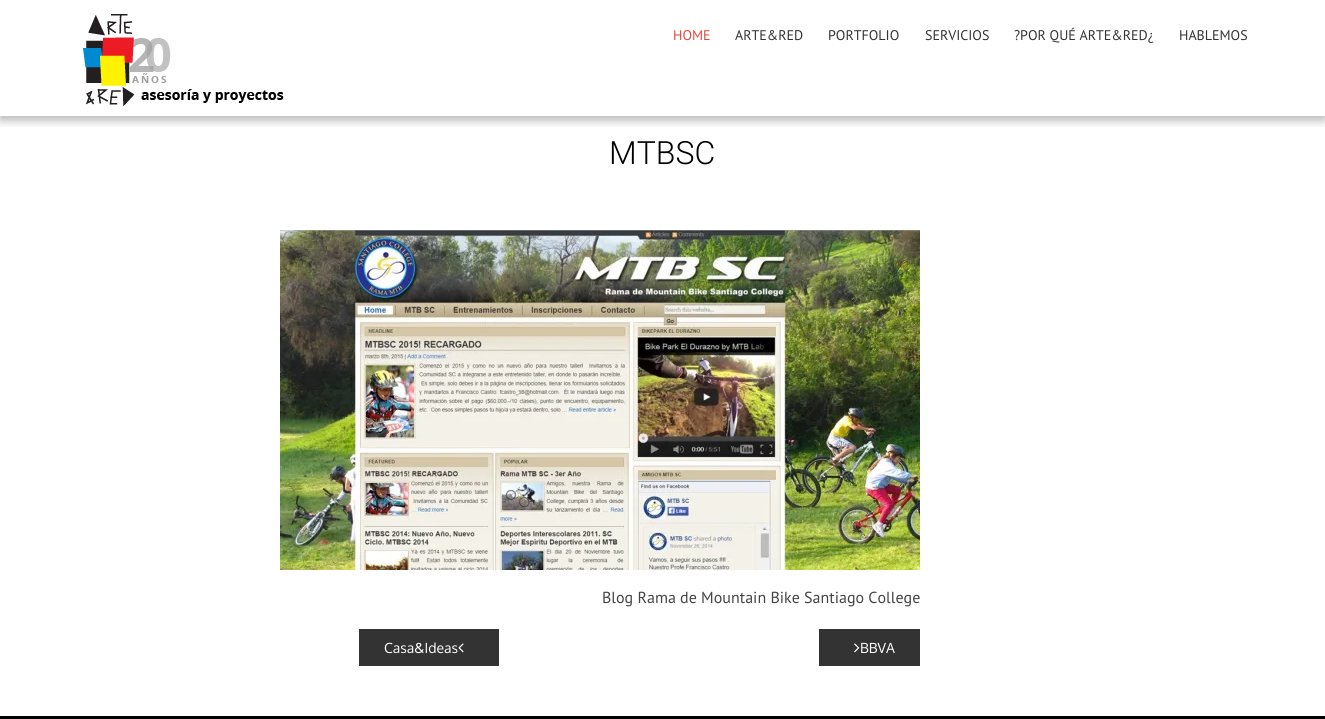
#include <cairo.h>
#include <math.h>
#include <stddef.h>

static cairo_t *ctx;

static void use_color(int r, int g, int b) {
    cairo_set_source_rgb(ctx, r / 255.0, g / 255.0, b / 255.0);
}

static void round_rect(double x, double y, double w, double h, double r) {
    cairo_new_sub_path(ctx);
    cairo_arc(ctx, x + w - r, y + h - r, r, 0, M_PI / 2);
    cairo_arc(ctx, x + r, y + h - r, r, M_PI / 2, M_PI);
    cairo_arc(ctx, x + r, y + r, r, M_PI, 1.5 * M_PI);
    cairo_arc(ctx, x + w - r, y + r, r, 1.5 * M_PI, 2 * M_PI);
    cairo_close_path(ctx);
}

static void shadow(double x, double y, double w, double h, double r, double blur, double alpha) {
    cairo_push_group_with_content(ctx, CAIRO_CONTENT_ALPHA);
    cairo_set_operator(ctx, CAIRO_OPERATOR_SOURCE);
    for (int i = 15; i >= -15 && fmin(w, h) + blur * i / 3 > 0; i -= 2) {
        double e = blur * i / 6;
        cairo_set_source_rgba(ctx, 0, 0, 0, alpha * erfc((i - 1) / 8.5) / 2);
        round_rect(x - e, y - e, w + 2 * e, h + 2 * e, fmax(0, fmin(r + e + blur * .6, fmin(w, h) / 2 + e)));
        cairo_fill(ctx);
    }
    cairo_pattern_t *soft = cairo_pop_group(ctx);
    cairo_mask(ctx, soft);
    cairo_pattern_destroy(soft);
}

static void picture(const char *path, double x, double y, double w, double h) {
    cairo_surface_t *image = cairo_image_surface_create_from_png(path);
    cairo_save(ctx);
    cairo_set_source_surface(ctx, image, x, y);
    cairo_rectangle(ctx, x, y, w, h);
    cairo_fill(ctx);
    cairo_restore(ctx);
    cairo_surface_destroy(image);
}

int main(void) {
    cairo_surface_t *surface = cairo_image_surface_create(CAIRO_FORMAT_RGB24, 1325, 719);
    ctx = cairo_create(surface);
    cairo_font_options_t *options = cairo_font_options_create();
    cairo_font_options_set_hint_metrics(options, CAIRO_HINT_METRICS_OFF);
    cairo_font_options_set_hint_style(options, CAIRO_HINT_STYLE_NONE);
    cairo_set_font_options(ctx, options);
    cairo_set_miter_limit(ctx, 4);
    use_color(255, 255, 255);
    cairo_paint(ctx);
    cairo_save(ctx);
    cairo_rectangle(ctx, 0, 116, 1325, 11);
    cairo_clip(ctx);
    use_color(0, 0, 0);
    shadow(0, 4, 1325, 116, 0, 5, 0.3);
    cairo_restore(ctx);
    picture("img1.png", 83, 14, 201, 92);
    cairo_select_font_face(ctx, "PT Sans", CAIRO_FONT_SLANT_NORMAL, CAIRO_FONT_WEIGHT_NORMAL);
    cairo_set_font_size(ctx, 14);
    use_color(219, 75, 63);
    cairo_move_to(ctx, 673, 40);
    cairo_show_text(ctx, "HOME");
    use_color(51, 51, 51);
    cairo_move_to(ctx, 735, 40);
    cairo_show_text(ctx, "ARTE&RED");
    cairo_move_to(ctx, 828, 40);
    cairo_show_text(ctx, "PORTFOLIO");
    cairo_move_to(ctx, 925, 40);
    cairo_show_text(ctx, "SERVICIOS");
    cairo_move_to(ctx, 1014, 40);
    cairo_show_text(ctx, "?POR QUÉ ARTE&RED¿");
    cairo_move_to(ctx, 1179, 40);
    cairo_show_text(ctx, "HABLEMOS");
    cairo_select_font_face(ctx, "Roboto Light", CAIRO_FONT_SLANT_NORMAL, CAIRO_FONT_WEIGHT_NORMAL);
    cairo_set_font_size(ctx, 32);
    use_color(0, 0, 0);
    cairo_move_to(ctx, 609, 164);
    cairo_show_text(ctx, "MTBSC");
    picture("img2.png", 280, 230, 640, 340);
    cairo_select_font_face(ctx, "PT Sans", CAIRO_FONT_SLANT_NORMAL, CAIRO_FONT_WEIGHT_NORMAL);
    cairo_set_font_size(ctx, 16);
    use_color(68, 68, 68);
    cairo_move_to(ctx, 602, 603);
    cairo_show_text(ctx, "Blog Rama de Mountain Bike Santiago College");
    use_color(51, 51, 51);
    cairo_rectangle(ctx, 359, 629, 140, 37);
    cairo_fill(ctx);
    cairo_select_font_face(ctx, "Oxygen", CAIRO_FONT_SLANT_NORMAL, CAIRO_FONT_WEIGHT_NORMAL);
    cairo_set_font_size(ctx, 14);
    use_color(255, 255, 255);
    cairo_move_to(ctx, 384, 653);
    cairo_show_text(ctx, "Casa&Ideas");
    picture("img3.png", 458, 643, 6, 10);
    use_color(51, 51, 51);
    cairo_rectangle(ctx, 819, 629, 101, 37);
    cairo_fill(ctx);
    picture("img4.png", 854, 643, 6, 10);
    use_color(255, 255, 255);
    cairo_move_to(ctx, 860, 653);
    cairo_show_text(ctx, "BBVA");
    use_color(0, 0, 0);
    cairo_rectangle(ctx, 0, 716, 1325, 3);
    cairo_fill(ctx);
    cairo_surface_write_to_png(surface, "result.png");
    cairo_font_options_destroy(options);
    cairo_destroy(ctx);
    cairo_surface_destroy(surface);
    return 0;
}
